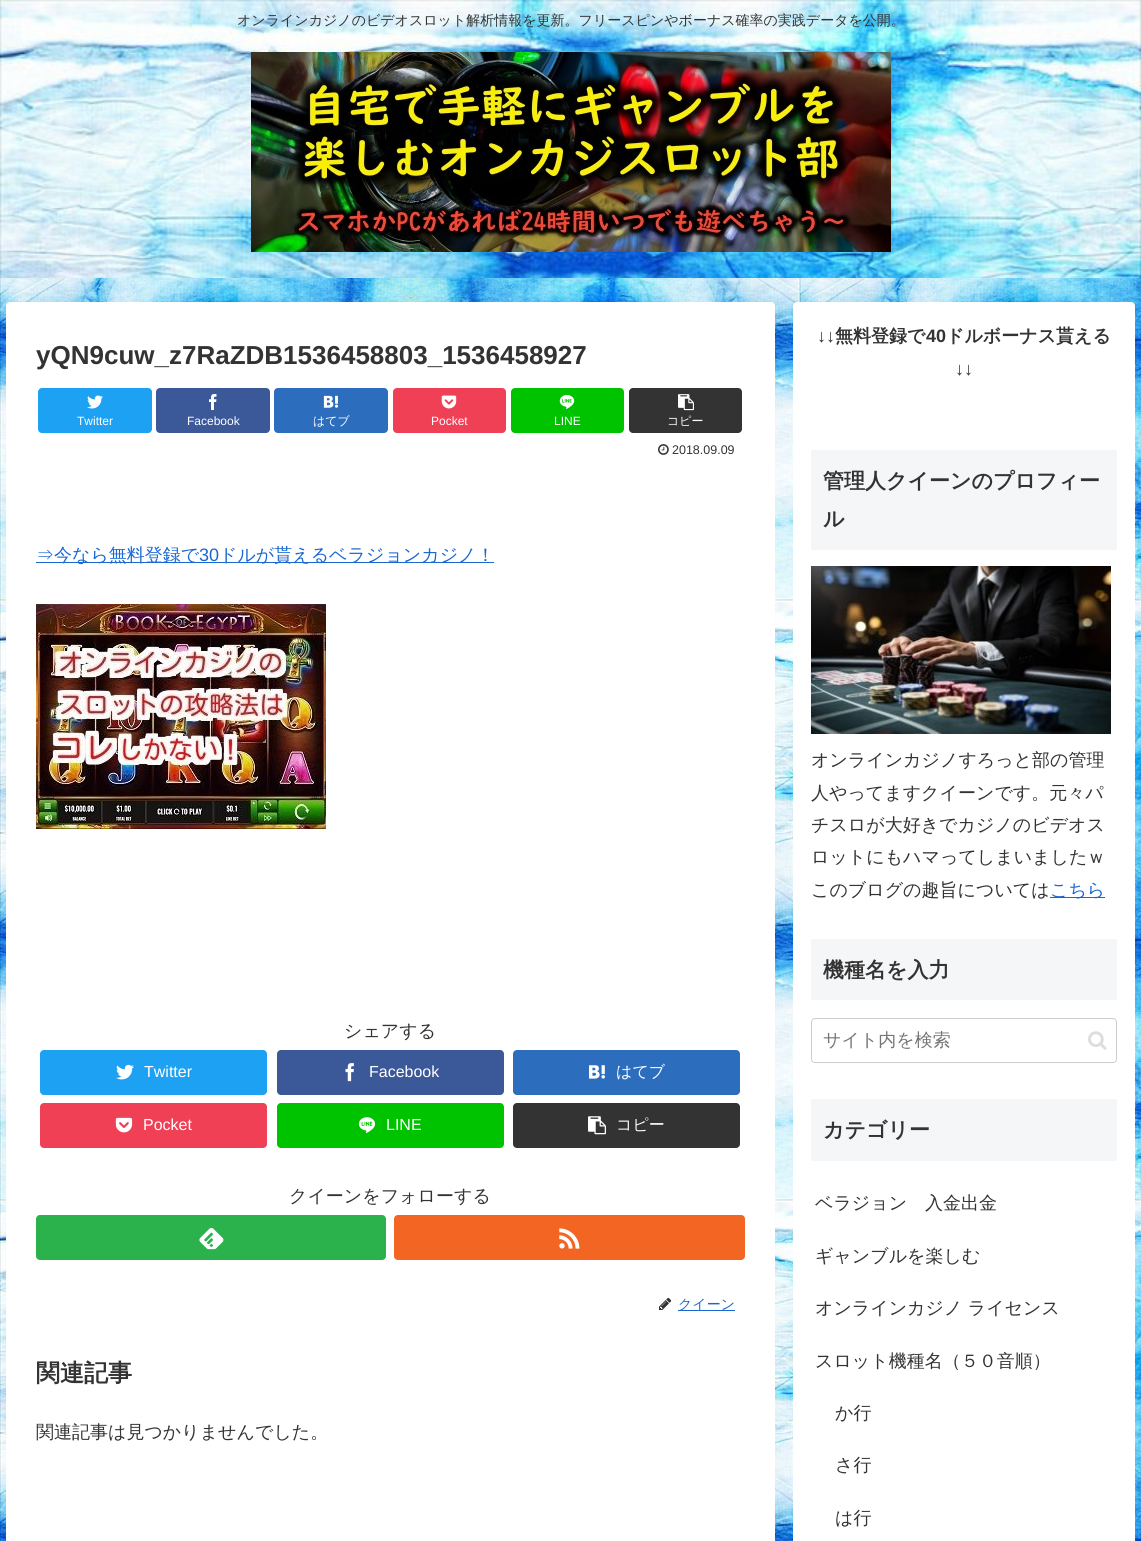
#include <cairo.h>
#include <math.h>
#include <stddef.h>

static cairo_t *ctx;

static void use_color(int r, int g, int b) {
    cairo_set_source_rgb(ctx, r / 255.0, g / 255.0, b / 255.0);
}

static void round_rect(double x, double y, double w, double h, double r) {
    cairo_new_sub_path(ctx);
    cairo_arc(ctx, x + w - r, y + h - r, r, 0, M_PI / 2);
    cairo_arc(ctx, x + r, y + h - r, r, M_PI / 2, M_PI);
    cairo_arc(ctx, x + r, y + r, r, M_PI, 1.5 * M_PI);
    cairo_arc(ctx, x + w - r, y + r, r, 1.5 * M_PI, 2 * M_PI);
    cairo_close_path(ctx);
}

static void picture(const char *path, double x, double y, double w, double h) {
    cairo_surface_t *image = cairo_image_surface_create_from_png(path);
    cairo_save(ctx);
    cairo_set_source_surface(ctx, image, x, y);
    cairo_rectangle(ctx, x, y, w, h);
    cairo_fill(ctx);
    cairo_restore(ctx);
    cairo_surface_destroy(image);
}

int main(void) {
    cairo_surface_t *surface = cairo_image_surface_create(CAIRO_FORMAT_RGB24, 1141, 1541);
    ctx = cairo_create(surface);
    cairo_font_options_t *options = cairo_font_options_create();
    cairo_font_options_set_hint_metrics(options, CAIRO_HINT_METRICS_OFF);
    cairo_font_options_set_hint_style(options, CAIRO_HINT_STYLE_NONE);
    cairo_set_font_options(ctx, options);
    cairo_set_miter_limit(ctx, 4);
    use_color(255, 255, 255);
    cairo_paint(ctx);
    picture("img1.png", 0, 278, 1141, 1263);
    picture("img2.png", 0, 0, 1141, 278);
    cairo_select_font_face(ctx, "WenQuanYi Zen Hei Medium", CAIRO_FONT_SLANT_NORMAL, CAIRO_FONT_WEIGHT_NORMAL);
    cairo_set_font_size(ctx, 14);
    use_color(51, 51, 51);
    cairo_move_to(ctx, 237, 25);
    cairo_show_text(ctx, "オンラインカジノのビデオスロット解析情報を更新。フリースピンやボーナス確率の実践データを公開。");
    picture("img3.png", 251, 52, 640, 200);
    use_color(255, 255, 255);
    round_rect(6, 302, 769, 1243, 4);
    cairo_fill(ctx);
    cairo_select_font_face(ctx, "Liberation Sans", CAIRO_FONT_SLANT_NORMAL, CAIRO_FONT_WEIGHT_BOLD);
    cairo_set_font_size(ctx, 26);
    use_color(51, 51, 51);
    cairo_move_to(ctx, 36, 364);
    cairo_show_text(ctx, "yQN9cuw_z7RaZDB1536458803_1536458927");
    use_color(29, 161, 242);
    round_rect(38, 388, 114, 45, 4);
    cairo_fill(ctx);
    picture("img4.png", 87, 395, 16, 14);
    cairo_select_font_face(ctx, "Liberation Sans", CAIRO_FONT_SLANT_NORMAL, CAIRO_FONT_WEIGHT_NORMAL);
    cairo_set_font_size(ctx, 12);
    use_color(255, 255, 255);
    cairo_move_to(ctx, 77, 425);
    cairo_show_text(ctx, "Twitter");
    use_color(59, 89, 152);
    round_rect(156, 388, 114, 45, 4);
    cairo_fill(ctx);
    picture("img5.png", 209, 394, 8, 16);
    use_color(255, 255, 255);
    cairo_move_to(ctx, 187, 425);
    cairo_show_text(ctx, "Facebook");
    use_color(44, 110, 189);
    round_rect(274, 388, 114, 45, 4);
    cairo_fill(ctx);
    picture("img6.png", 323, 395, 16, 13);
    cairo_select_font_face(ctx, "WenQuanYi Zen Hei Medium", CAIRO_FONT_SLANT_NORMAL, CAIRO_FONT_WEIGHT_NORMAL);
    use_color(255, 255, 255);
    cairo_move_to(ctx, 313, 425);
    cairo_show_text(ctx, "はてブ");
    use_color(239, 64, 86);
    round_rect(393, 388, 113, 45, 4);
    cairo_fill(ctx);
    picture("img7.png", 441, 395, 16, 14);
    cairo_select_font_face(ctx, "Liberation Sans", CAIRO_FONT_SLANT_NORMAL, CAIRO_FONT_WEIGHT_NORMAL);
    use_color(255, 255, 255);
    cairo_move_to(ctx, 431, 425);
    cairo_show_text(ctx, "Pocket");
    use_color(0, 195, 0);
    round_rect(511, 388, 113, 45, 4);
    cairo_fill(ctx);
    picture("img8.png", 559, 395, 16, 14);
    use_color(255, 255, 255);
    cairo_move_to(ctx, 554, 425);
    cairo_show_text(ctx, "LINE");
    use_color(51, 51, 51);
    round_rect(629, 388, 113, 45, 4);
    cairo_fill(ctx);
    picture("img9.png", 678, 394, 16, 17);
    cairo_select_font_face(ctx, "WenQuanYi Zen Hei Medium", CAIRO_FONT_SLANT_NORMAL, CAIRO_FONT_WEIGHT_NORMAL);
    use_color(255, 255, 255);
    cairo_move_to(ctx, 667, 425);
    cairo_show_text(ctx, "コピー");
    picture("img10.png", 658, 444, 11, 11);
    cairo_select_font_face(ctx, "Liberation Sans", CAIRO_FONT_SLANT_NORMAL, CAIRO_FONT_WEIGHT_NORMAL);
    cairo_set_font_size(ctx, 12.5);
    use_color(51, 51, 51);
    cairo_move_to(ctx, 672, 454);
    cairo_show_text(ctx, "2018.09.09");
    use_color(25, 103, 210);
    cairo_rectangle(ctx, 36, 562, 458, 1);
    cairo_fill(ctx);
    cairo_select_font_face(ctx, "WenQuanYi Zen Hei Medium", CAIRO_FONT_SLANT_NORMAL, CAIRO_FONT_WEIGHT_NORMAL);
    cairo_set_font_size(ctx, 18);
    cairo_move_to(ctx, 36, 561);
    cairo_show_text(ctx, "⇒今なら無料登録で");
    cairo_select_font_face(ctx, "Liberation Sans", CAIRO_FONT_SLANT_NORMAL, CAIRO_FONT_WEIGHT_NORMAL);
    cairo_move_to(ctx, 199, 561);
    cairo_show_text(ctx, "30");
    cairo_select_font_face(ctx, "WenQuanYi Zen Hei Medium", CAIRO_FONT_SLANT_NORMAL, CAIRO_FONT_WEIGHT_NORMAL);
    cairo_move_to(ctx, 219, 561);
    cairo_show_text(ctx, "ドルが貰えるベラジョンカジノ！");
    picture("img11.png", 36, 604, 290, 225);
    use_color(51, 51, 51);
    cairo_move_to(ctx, 344, 1037);
    cairo_show_text(ctx, "シェアする");
    use_color(29, 161, 242);
    round_rect(40, 1050, 227, 45, 4);
    cairo_fill(ctx);
    picture("img12.png", 116, 1064, 18, 16);
    cairo_select_font_face(ctx, "Liberation Sans", CAIRO_FONT_SLANT_NORMAL, CAIRO_FONT_WEIGHT_NORMAL);
    cairo_set_font_size(ctx, 16);
    use_color(255, 255, 255);
    cairo_move_to(ctx, 144, 1077);
    cairo_show_text(ctx, "Twitter");
    use_color(59, 89, 152);
    round_rect(277, 1050, 227, 45, 4);
    cairo_fill(ctx);
    picture("img13.png", 345, 1063, 9, 19);
    use_color(255, 255, 255);
    cairo_move_to(ctx, 369, 1077);
    cairo_show_text(ctx, "Facebook");
    use_color(44, 110, 189);
    round_rect(513, 1050, 227, 45, 4);
    cairo_fill(ctx);
    picture("img14.png", 589, 1065, 16, 14);
    cairo_select_font_face(ctx, "WenQuanYi Zen Hei Medium", CAIRO_FONT_SLANT_NORMAL, CAIRO_FONT_WEIGHT_NORMAL);
    use_color(255, 255, 255);
    cairo_move_to(ctx, 616, 1077);
    cairo_show_text(ctx, "はてブ");
    use_color(239, 64, 86);
    round_rect(40, 1103, 227, 45, 4);
    cairo_fill(ctx);
    picture("img15.png", 115, 1117, 18, 16);
    cairo_select_font_face(ctx, "Liberation Sans", CAIRO_FONT_SLANT_NORMAL, CAIRO_FONT_WEIGHT_NORMAL);
    use_color(255, 255, 255);
    cairo_move_to(ctx, 143, 1130);
    cairo_show_text(ctx, "Pocket");
    use_color(0, 195, 0);
    round_rect(277, 1103, 227, 45, 4);
    cairo_fill(ctx);
    picture("img16.png", 358, 1117, 18, 16);
    use_color(255, 255, 255);
    cairo_move_to(ctx, 386, 1130);
    cairo_show_text(ctx, "LINE");
    use_color(51, 51, 51);
    round_rect(513, 1103, 227, 45, 4);
    cairo_fill(ctx);
    picture("img17.png", 588, 1116, 18, 19);
    cairo_select_font_face(ctx, "WenQuanYi Zen Hei Medium", CAIRO_FONT_SLANT_NORMAL, CAIRO_FONT_WEIGHT_NORMAL);
    use_color(255, 255, 255);
    cairo_move_to(ctx, 616, 1130);
    cairo_show_text(ctx, "コピー");
    cairo_set_font_size(ctx, 18);
    use_color(51, 51, 51);
    cairo_move_to(ctx, 289, 1202);
    cairo_show_text(ctx, "クイーンをフォローする");
    use_color(43, 178, 76);
    round_rect(36, 1215, 350, 45, 4);
    cairo_fill(ctx);
    picture("img18.png", 199, 1227, 25, 23);
    use_color(242, 101, 34);
    round_rect(394, 1215, 351, 45, 4);
    cairo_fill(ctx);
    picture("img19.png", 559, 1228, 21, 21);
    picture("img20.png", 659, 1297, 13, 13);
    use_color(25, 103, 210);
    cairo_rectangle(ctx, 678, 1310, 57, 1);
    cairo_fill(ctx);
    cairo_set_font_size(ctx, 14);
    cairo_move_to(ctx, 678, 1309);
    cairo_show_text(ctx, "クイーン");
    cairo_select_font_face(ctx, "WenQuanYi Zen Hei", CAIRO_FONT_SLANT_NORMAL, CAIRO_FONT_WEIGHT_BOLD);
    cairo_set_font_size(ctx, 24);
    use_color(51, 51, 51);
    cairo_move_to(ctx, 36, 1381);
    cairo_show_text(ctx, "関連記事");
    cairo_select_font_face(ctx, "WenQuanYi Zen Hei Medium", CAIRO_FONT_SLANT_NORMAL, CAIRO_FONT_WEIGHT_NORMAL);
    cairo_set_font_size(ctx, 18);
    cairo_move_to(ctx, 36, 1438);
    cairo_show_text(ctx, "関連記事は見つかりませんでした。");
    use_color(255, 255, 255);
    round_rect(793, 302, 342, 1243, 4);
    cairo_fill(ctx);
    cairo_select_font_face(ctx, "Liberation Sans", CAIRO_FONT_SLANT_NORMAL, CAIRO_FONT_WEIGHT_NORMAL);
    use_color(51, 51, 51);
    cairo_move_to(ctx, 817, 342);
    cairo_show_text(ctx, "↓↓");
    cairo_select_font_face(ctx, "WenQuanYi Zen Hei", CAIRO_FONT_SLANT_NORMAL, CAIRO_FONT_WEIGHT_BOLD);
    cairo_move_to(ctx, 835, 342);
    cairo_show_text(ctx, "無料登録で");
    cairo_select_font_face(ctx, "Liberation Sans", CAIRO_FONT_SLANT_NORMAL, CAIRO_FONT_WEIGHT_BOLD);
    cairo_move_to(ctx, 926, 342);
    cairo_show_text(ctx, "40");
    cairo_select_font_face(ctx, "WenQuanYi Zen Hei", CAIRO_FONT_SLANT_NORMAL, CAIRO_FONT_WEIGHT_BOLD);
    cairo_move_to(ctx, 946, 342);
    cairo_show_text(ctx, "ドルボーナス貰える");
    cairo_select_font_face(ctx, "Liberation Sans", CAIRO_FONT_SLANT_NORMAL, CAIRO_FONT_WEIGHT_NORMAL);
    cairo_move_to(ctx, 955, 375);
    cairo_show_text(ctx, "↓↓");
    use_color(245, 246, 247);
    round_rect(811, 450, 306, 100, 2);
    cairo_fill(ctx);
    cairo_select_font_face(ctx, "WenQuanYi Zen Hei", CAIRO_FONT_SLANT_NORMAL, CAIRO_FONT_WEIGHT_BOLD);
    cairo_set_font_size(ctx, 21);
    use_color(51, 51, 51);
    cairo_move_to(ctx, 823, 488);
    cairo_show_text(ctx, "管理人クイーンのプロフィー");
    cairo_move_to(ctx, 823, 526);
    cairo_show_text(ctx, "ル");
    picture("img21.png", 811, 566, 300, 168);
    cairo_select_font_face(ctx, "WenQuanYi Zen Hei Medium", CAIRO_FONT_SLANT_NORMAL, CAIRO_FONT_WEIGHT_NORMAL);
    cairo_set_font_size(ctx, 18);
    cairo_move_to(ctx, 811, 766);
    cairo_show_text(ctx, "オンラインカジノすろっと部の管理");
    cairo_move_to(ctx, 811, 799);
    cairo_show_text(ctx, "人やってますクイーンです。元々パ");
    cairo_move_to(ctx, 811, 831);
    cairo_show_text(ctx, "チスロが大好きでカジノのビデオス");
    cairo_move_to(ctx, 811, 863);
    cairo_show_text(ctx, "ロットにもハマってしまいましたｗ");
    cairo_move_to(ctx, 811, 896);
    cairo_show_text(ctx, "このブログの趣旨については");
    use_color(25, 103, 210);
    cairo_rectangle(ctx, 1050, 897, 55, 1);
    cairo_fill(ctx);
    cairo_move_to(ctx, 1050, 896);
    cairo_show_text(ctx, "こちら");
    use_color(245, 246, 247);
    round_rect(811, 939, 306, 61, 2);
    cairo_fill(ctx);
    cairo_select_font_face(ctx, "WenQuanYi Zen Hei", CAIRO_FONT_SLANT_NORMAL, CAIRO_FONT_WEIGHT_BOLD);
    cairo_set_font_size(ctx, 21);
    use_color(51, 51, 51);
    cairo_move_to(ctx, 823, 977);
    cairo_show_text(ctx, "機種名を入力");
    round_rect(811.5, 1018.5, 305, 44, 3.5);
    use_color(204, 204, 204);
    cairo_set_line_width(ctx, 1);
    cairo_stroke(ctx);
    cairo_select_font_face(ctx, "WenQuanYi Zen Hei Medium", CAIRO_FONT_SLANT_NORMAL, CAIRO_FONT_WEIGHT_NORMAL);
    cairo_set_font_size(ctx, 18);
    use_color(117, 117, 117);
    cairo_move_to(ctx, 823, 1046);
    cairo_show_text(ctx, "サイト内を検索");
    picture("img22.png", 1088, 1031, 19, 19);
    use_color(245, 246, 247);
    round_rect(811, 1099, 306, 62, 2);
    cairo_fill(ctx);
    cairo_select_font_face(ctx, "WenQuanYi Zen Hei", CAIRO_FONT_SLANT_NORMAL, CAIRO_FONT_WEIGHT_BOLD);
    cairo_set_font_size(ctx, 21);
    use_color(51, 51, 51);
    cairo_move_to(ctx, 823, 1137);
    cairo_show_text(ctx, "カテゴリー");
    cairo_select_font_face(ctx, "WenQuanYi Zen Hei Medium", CAIRO_FONT_SLANT_NORMAL, CAIRO_FONT_WEIGHT_NORMAL);
    cairo_set_font_size(ctx, 18);
    cairo_move_to(ctx, 815, 1209);
    cairo_show_text(ctx, "ベラジョン　入金出金");
    cairo_move_to(ctx, 815, 1262);
    cairo_show_text(ctx, "ギャンブルを楽しむ");
    cairo_move_to(ctx, 815, 1314);
    cairo_show_text(ctx, "オンラインカジノ ライセンス");
    cairo_move_to(ctx, 815, 1367);
    cairo_show_text(ctx, "スロット機種名（５０音順）");
    cairo_move_to(ctx, 835, 1419);
    cairo_show_text(ctx, "か行");
    cairo_move_to(ctx, 835, 1471);
    cairo_show_text(ctx, "さ行");
    cairo_move_to(ctx, 835, 1524);
    cairo_show_text(ctx, "は行");
    cairo_surface_write_to_png(surface, "result.png");
    cairo_font_options_destroy(options);
    cairo_destroy(ctx);
    cairo_surface_destroy(surface);
    return 0;
}
